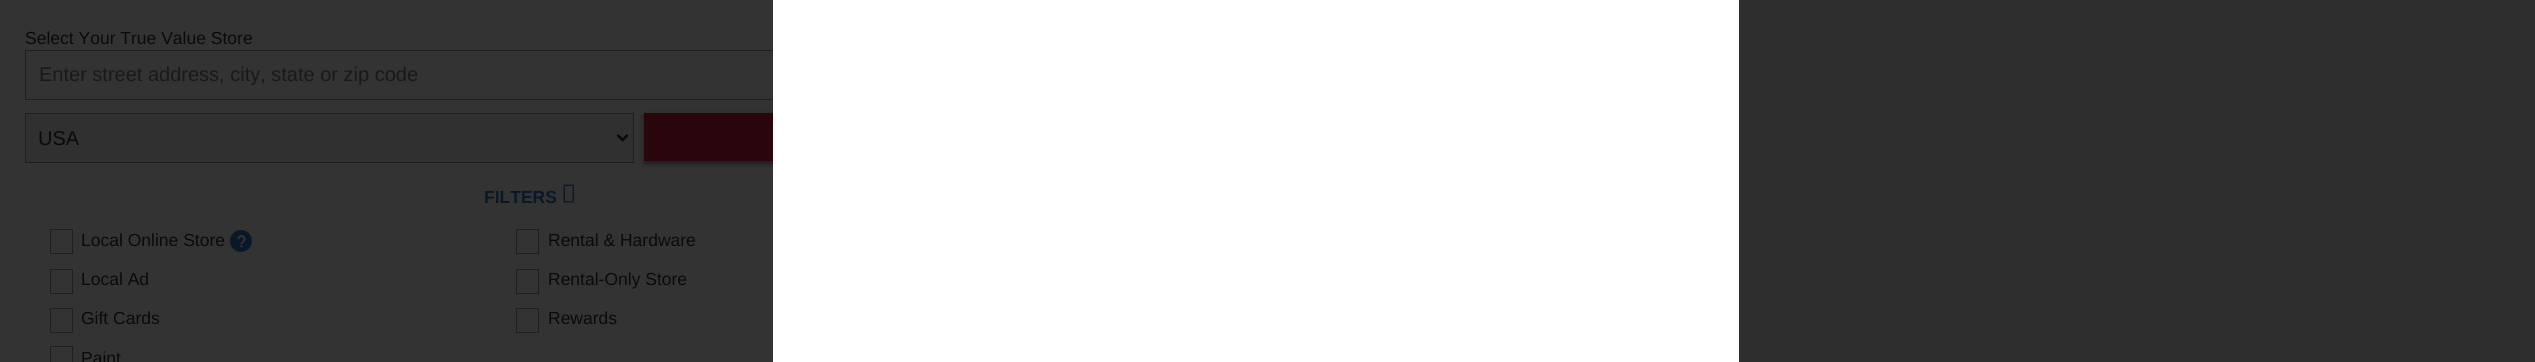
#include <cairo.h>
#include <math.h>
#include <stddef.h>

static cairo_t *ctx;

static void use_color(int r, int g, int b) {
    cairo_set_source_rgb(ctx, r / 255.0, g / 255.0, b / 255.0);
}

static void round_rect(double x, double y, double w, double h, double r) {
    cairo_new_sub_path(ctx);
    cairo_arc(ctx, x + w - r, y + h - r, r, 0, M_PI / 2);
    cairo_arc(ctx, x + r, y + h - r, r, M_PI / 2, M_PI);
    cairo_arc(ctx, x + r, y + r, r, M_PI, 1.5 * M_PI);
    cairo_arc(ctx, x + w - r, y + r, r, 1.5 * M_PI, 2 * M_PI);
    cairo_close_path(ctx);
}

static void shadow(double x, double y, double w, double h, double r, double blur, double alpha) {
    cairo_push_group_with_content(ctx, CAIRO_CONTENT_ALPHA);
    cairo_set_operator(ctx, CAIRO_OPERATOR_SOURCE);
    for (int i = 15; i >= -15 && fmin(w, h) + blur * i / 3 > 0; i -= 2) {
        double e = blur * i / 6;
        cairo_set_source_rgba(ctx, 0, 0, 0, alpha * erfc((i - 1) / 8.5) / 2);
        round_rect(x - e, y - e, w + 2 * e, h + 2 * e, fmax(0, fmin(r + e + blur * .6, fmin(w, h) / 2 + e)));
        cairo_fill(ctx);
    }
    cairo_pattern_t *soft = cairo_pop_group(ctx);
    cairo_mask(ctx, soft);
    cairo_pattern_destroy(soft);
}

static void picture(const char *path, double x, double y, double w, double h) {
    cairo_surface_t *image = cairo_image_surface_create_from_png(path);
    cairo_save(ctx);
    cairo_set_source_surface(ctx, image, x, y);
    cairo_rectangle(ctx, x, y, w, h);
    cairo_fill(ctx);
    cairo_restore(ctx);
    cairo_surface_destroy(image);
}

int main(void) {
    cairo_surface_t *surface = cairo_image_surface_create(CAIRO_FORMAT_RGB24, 2535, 362);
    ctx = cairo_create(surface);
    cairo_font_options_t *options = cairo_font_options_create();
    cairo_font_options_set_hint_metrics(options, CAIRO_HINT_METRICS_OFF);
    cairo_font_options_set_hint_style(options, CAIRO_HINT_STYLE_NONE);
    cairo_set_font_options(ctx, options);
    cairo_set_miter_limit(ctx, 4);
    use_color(51, 51, 51);
    cairo_paint(ctx);
    cairo_select_font_face(ctx, "Liberation Sans", CAIRO_FONT_SLANT_NORMAL, CAIRO_FONT_WEIGHT_NORMAL);
    cairo_set_font_size(ctx, 17.5);
    use_color(10, 10, 10);
    cairo_move_to(ctx, 25, 44);
    cairo_show_text(ctx, "Select Your True Value Store");
    cairo_rectangle(ctx, 25.5, 50.5, 1014, 49);
    use_color(31, 31, 31);
    cairo_set_line_width(ctx, 1);
    cairo_stroke(ctx);
    cairo_set_font_size(ctx, 20);
    use_color(25, 25, 25);
    cairo_move_to(ctx, 39, 81);
    cairo_show_text(ctx, "Enter street address, city, state or zip code");
    use_color(48, 48, 48);
    cairo_rectangle(ctx, 25.5, 113.5, 608, 49);
    cairo_fill_preserve(ctx);
    use_color(31, 31, 31);
    cairo_stroke(ctx);
    cairo_new_path(ctx);
    cairo_move_to(ctx, 617.5, 135);
    cairo_line_to(ctx, 622.5, 140);
    cairo_line_to(ctx, 627.5, 135);
    use_color(8, 8, 8);
    cairo_set_line_width(ctx, 2.5);
    cairo_stroke(ctx);
    use_color(10, 10, 10);
    cairo_move_to(ctx, 38, 145);
    cairo_show_text(ctx, "USA");
    use_color(4, 4, 4);
    shadow(644, 115, 396, 49, 0, 2.5, 0.5);
    use_color(40, 6, 12);
    cairo_rectangle(ctx, 644, 113, 129, 48);
    cairo_fill(ctx);
    cairo_select_font_face(ctx, "Liberation Sans", CAIRO_FONT_SLANT_NORMAL, CAIRO_FONT_WEIGHT_BOLD);
    cairo_set_font_size(ctx, 17.5);
    use_color(8, 24, 38);
    cairo_move_to(ctx, 484, 203);
    cairo_show_text(ctx, "FILTERS");
    picture("img1.png", 563, 184, 11, 19);
    cairo_rectangle(ctx, 50.5, 229.5, 22, 24);
    use_color(31, 31, 31);
    cairo_set_line_width(ctx, 1);
    cairo_stroke(ctx);
    cairo_select_font_face(ctx, "Liberation Sans", CAIRO_FONT_SLANT_NORMAL, CAIRO_FONT_WEIGHT_NORMAL);
    use_color(10, 10, 10);
    cairo_move_to(ctx, 81, 246);
    cairo_show_text(ctx, "Local Online Store");
    picture("img2.png", 230, 230, 22, 22);
    cairo_rectangle(ctx, 516.5, 229.5, 22, 24);
    use_color(31, 31, 31);
    cairo_stroke(ctx);
    use_color(10, 10, 10);
    cairo_move_to(ctx, 548, 246);
    cairo_show_text(ctx, "Rental & Hardware");
    cairo_rectangle(ctx, 50.5, 269.5, 22, 24);
    use_color(31, 31, 31);
    cairo_stroke(ctx);
    use_color(10, 10, 10);
    cairo_move_to(ctx, 81, 285);
    cairo_show_text(ctx, "Local Ad");
    cairo_rectangle(ctx, 516.5, 269.5, 22, 24);
    use_color(31, 31, 31);
    cairo_stroke(ctx);
    use_color(10, 10, 10);
    cairo_move_to(ctx, 548, 285);
    cairo_show_text(ctx, "Rental-Only Store");
    cairo_rectangle(ctx, 50.5, 308.5, 22, 24);
    use_color(31, 31, 31);
    cairo_stroke(ctx);
    use_color(10, 10, 10);
    cairo_move_to(ctx, 81, 324);
    cairo_show_text(ctx, "Gift Cards");
    cairo_rectangle(ctx, 516.5, 308.5, 22, 24);
    use_color(31, 31, 31);
    cairo_stroke(ctx);
    use_color(10, 10, 10);
    cairo_move_to(ctx, 548, 324);
    cairo_show_text(ctx, "Rewards");
    cairo_rectangle(ctx, 50.5, 346.5, 22, 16);
    use_color(31, 31, 31);
    cairo_stroke(ctx);
    use_color(10, 10, 10);
    cairo_move_to(ctx, 81, 364);
    cairo_show_text(ctx, "Paint");
    use_color(46, 45, 45);
    cairo_rectangle(ctx, 1739, 0, 796, 362);
    cairo_fill(ctx);
    use_color(255, 255, 255);
    cairo_rectangle(ctx, 773, 0, 966, 362);
    cairo_fill(ctx);
    cairo_surface_write_to_png(surface, "result.png");
    cairo_font_options_destroy(options);
    cairo_destroy(ctx);
    cairo_surface_destroy(surface);
    return 0;
}
